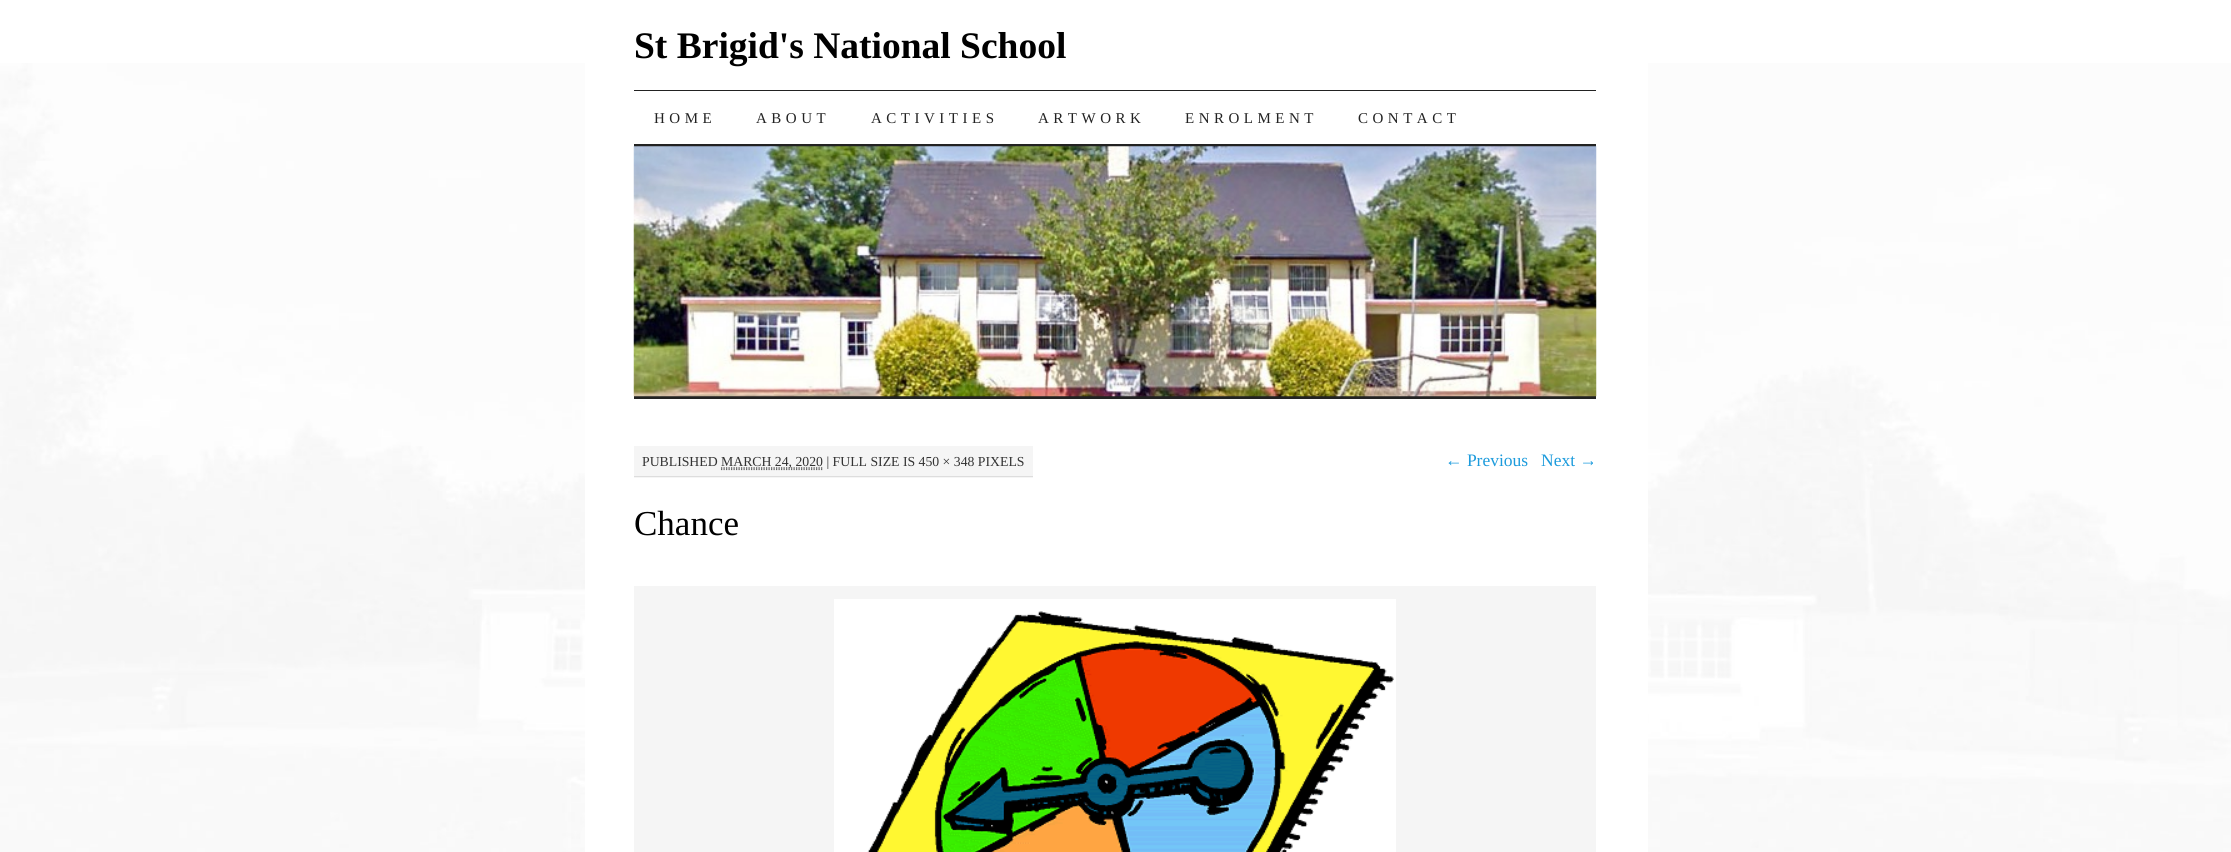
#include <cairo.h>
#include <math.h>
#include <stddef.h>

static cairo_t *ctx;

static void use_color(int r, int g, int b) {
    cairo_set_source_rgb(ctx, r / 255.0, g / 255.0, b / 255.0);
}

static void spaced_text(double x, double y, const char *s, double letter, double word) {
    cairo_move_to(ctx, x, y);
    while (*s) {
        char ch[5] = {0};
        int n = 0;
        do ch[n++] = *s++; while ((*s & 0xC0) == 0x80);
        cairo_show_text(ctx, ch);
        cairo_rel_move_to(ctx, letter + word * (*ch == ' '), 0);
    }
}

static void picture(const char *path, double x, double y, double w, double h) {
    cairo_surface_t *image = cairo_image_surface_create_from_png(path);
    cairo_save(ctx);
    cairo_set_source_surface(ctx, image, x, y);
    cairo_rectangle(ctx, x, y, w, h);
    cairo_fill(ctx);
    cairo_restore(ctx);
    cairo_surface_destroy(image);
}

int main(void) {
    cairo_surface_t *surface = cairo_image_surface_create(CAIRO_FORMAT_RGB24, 2231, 852);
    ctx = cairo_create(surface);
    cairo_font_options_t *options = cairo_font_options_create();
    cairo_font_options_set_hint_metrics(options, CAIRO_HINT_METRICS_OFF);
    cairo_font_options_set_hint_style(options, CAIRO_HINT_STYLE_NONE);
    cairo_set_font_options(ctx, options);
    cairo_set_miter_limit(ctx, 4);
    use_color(255, 255, 255);
    cairo_paint(ctx);
    picture("img1.png", 0, 63, 2231, 789);
    use_color(255, 255, 255);
    cairo_rectangle(ctx, 585, 63, 1063, 789);
    cairo_fill(ctx);
    cairo_select_font_face(ctx, "Liberation Serif", CAIRO_FONT_SLANT_NORMAL, CAIRO_FONT_WEIGHT_BOLD);
    cairo_set_font_size(ctx, 37.5);
    use_color(0, 0, 0);
    cairo_move_to(ctx, 634, 58);
    cairo_show_text(ctx, "St Brigid's National School");
    use_color(34, 34, 34);
    cairo_rectangle(ctx, 634, 90, 962, 1);
    cairo_fill(ctx);
    cairo_rectangle(ctx, 634, 144, 962, 3);
    cairo_fill(ctx);
    cairo_select_font_face(ctx, "Liberation Serif", CAIRO_FONT_SLANT_NORMAL, CAIRO_FONT_WEIGHT_NORMAL);
    cairo_set_font_size(ctx, 15);
    spaced_text(654, 123, "HOME", 4.5, 0);
    spaced_text(756, 123, "ABOUT", 4.5, 0);
    spaced_text(871, 123, "ACTIVITIES", 4.5, 0);
    spaced_text(1038, 123, "ARTWORK", 4.5, 0);
    spaced_text(1185, 123, "ENROLMENT", 4.5, 0);
    spaced_text(1358, 123, "CONTACT", 4.5, 0);
    cairo_rectangle(ctx, 634, 396, 962, 3);
    cairo_fill(ctx);
    picture("img2.png", 633, 146, 964, 251);
    use_color(245, 245, 245);
    cairo_rectangle(ctx, 634, 446, 399, 32);
    cairo_fill(ctx);
    use_color(221, 221, 221);
    cairo_rectangle(ctx, 634, 476, 399, 1);
    cairo_fill(ctx);
    cairo_set_font_size(ctx, 13.75);
    use_color(51, 51, 51);
    cairo_move_to(ctx, 642, 466);
    cairo_show_text(ctx, "PUBLISHED");
    cairo_new_path(ctx);
    cairo_move_to(ctx, 721, 469.5);
    cairo_line_to(ctx, 822.5, 469.5);
    use_color(102, 102, 102);
    cairo_set_line_width(ctx, 1.2);
    cairo_set_dash(ctx, (double[]){1.25, 1.25}, 2, 0);
    cairo_stroke(ctx);
    cairo_new_path(ctx);
    cairo_move_to(ctx, 721, 468);
    cairo_line_to(ctx, 823, 468);
    use_color(51, 51, 51);
    cairo_stroke(ctx);
    cairo_move_to(ctx, 721, 466);
    cairo_show_text(ctx, "MARCH 24, 2020 | FULL SIZE IS 450 × 348 PIXELS");
    cairo_set_font_size(ctx, 17.5);
    use_color(28, 155, 220);
    cairo_move_to(ctx, 1445, 466);
    cairo_show_text(ctx, "← Previous");
    cairo_move_to(ctx, 1541, 466);
    cairo_show_text(ctx, "Next →");
    cairo_set_font_size(ctx, 35);
    use_color(0, 0, 0);
    cairo_move_to(ctx, 634, 535);
    cairo_show_text(ctx, "Chance");
    use_color(245, 245, 245);
    cairo_rectangle(ctx, 634, 586, 962, 266);
    cairo_fill(ctx);
    picture("img3.png", 834, 599, 562, 253);
    cairo_surface_write_to_png(surface, "result.png");
    cairo_font_options_destroy(options);
    cairo_destroy(ctx);
    cairo_surface_destroy(surface);
    return 0;
}
